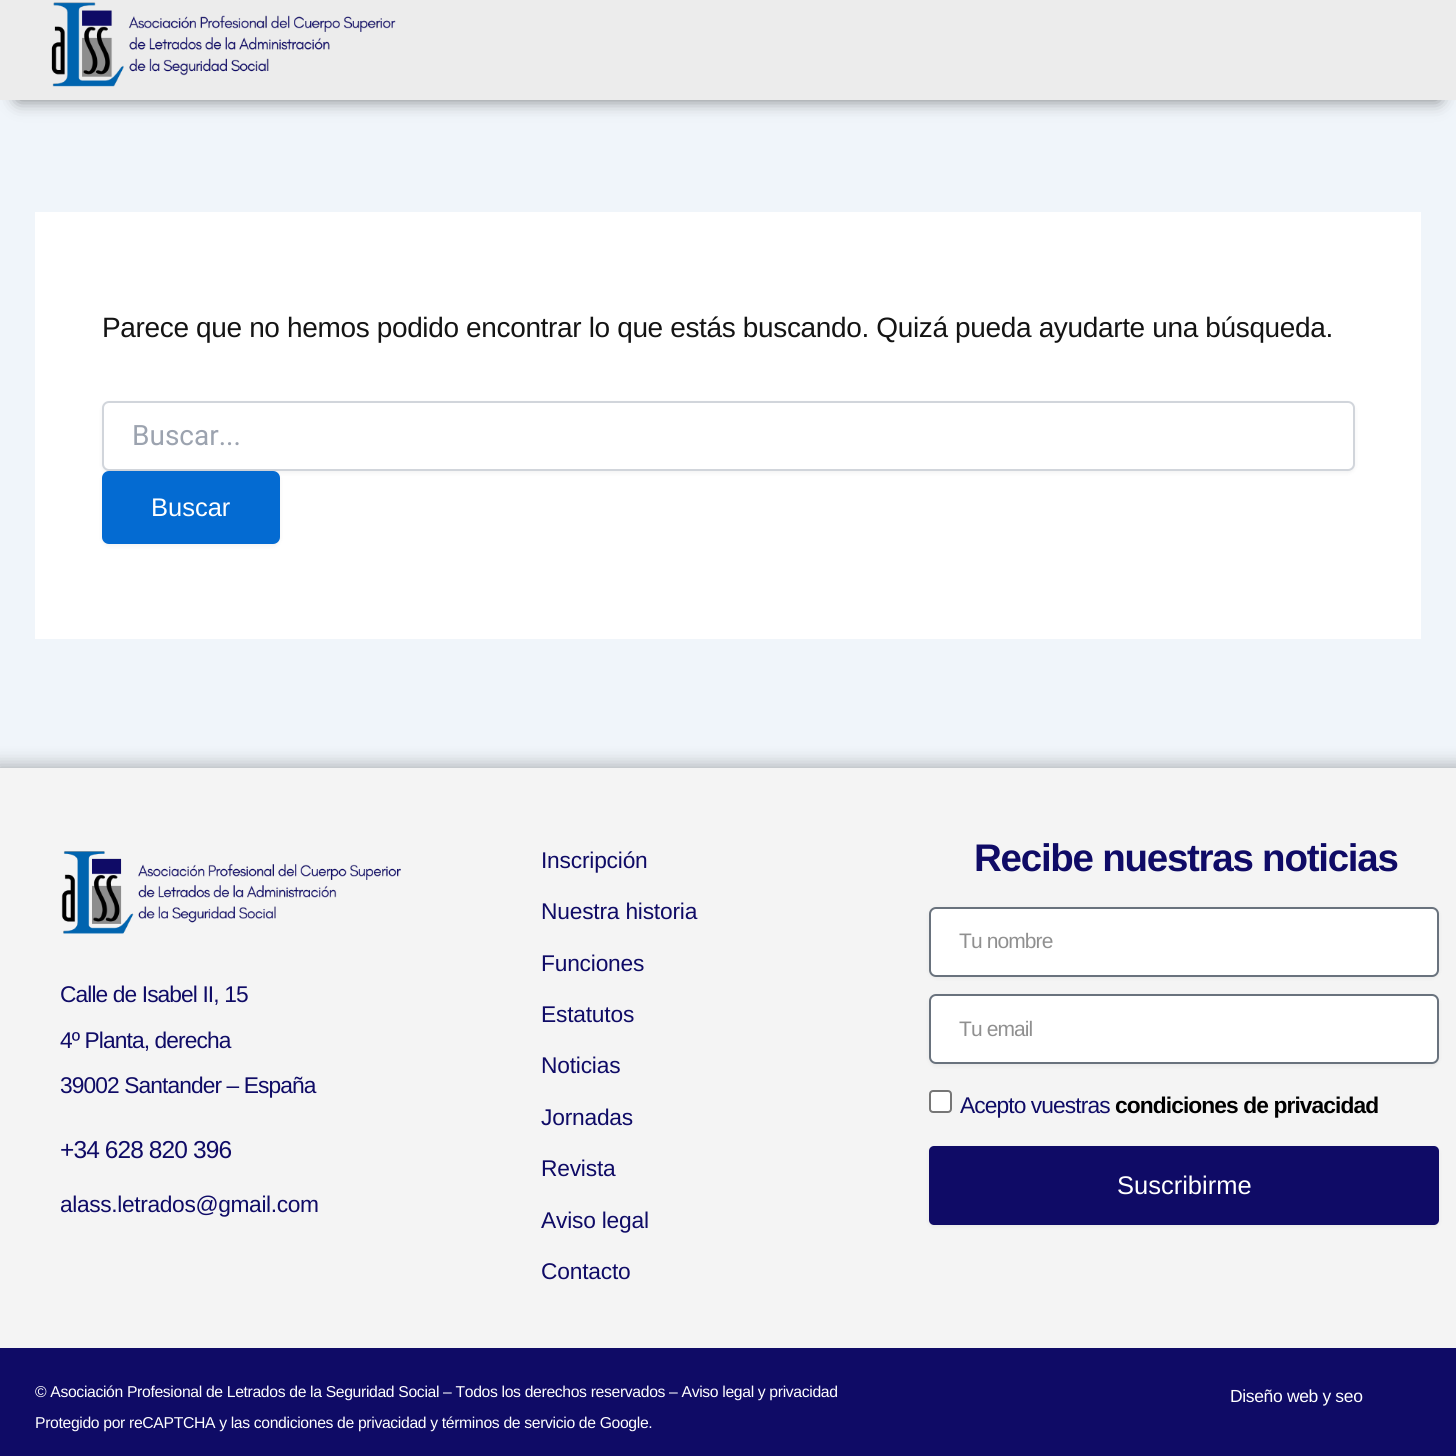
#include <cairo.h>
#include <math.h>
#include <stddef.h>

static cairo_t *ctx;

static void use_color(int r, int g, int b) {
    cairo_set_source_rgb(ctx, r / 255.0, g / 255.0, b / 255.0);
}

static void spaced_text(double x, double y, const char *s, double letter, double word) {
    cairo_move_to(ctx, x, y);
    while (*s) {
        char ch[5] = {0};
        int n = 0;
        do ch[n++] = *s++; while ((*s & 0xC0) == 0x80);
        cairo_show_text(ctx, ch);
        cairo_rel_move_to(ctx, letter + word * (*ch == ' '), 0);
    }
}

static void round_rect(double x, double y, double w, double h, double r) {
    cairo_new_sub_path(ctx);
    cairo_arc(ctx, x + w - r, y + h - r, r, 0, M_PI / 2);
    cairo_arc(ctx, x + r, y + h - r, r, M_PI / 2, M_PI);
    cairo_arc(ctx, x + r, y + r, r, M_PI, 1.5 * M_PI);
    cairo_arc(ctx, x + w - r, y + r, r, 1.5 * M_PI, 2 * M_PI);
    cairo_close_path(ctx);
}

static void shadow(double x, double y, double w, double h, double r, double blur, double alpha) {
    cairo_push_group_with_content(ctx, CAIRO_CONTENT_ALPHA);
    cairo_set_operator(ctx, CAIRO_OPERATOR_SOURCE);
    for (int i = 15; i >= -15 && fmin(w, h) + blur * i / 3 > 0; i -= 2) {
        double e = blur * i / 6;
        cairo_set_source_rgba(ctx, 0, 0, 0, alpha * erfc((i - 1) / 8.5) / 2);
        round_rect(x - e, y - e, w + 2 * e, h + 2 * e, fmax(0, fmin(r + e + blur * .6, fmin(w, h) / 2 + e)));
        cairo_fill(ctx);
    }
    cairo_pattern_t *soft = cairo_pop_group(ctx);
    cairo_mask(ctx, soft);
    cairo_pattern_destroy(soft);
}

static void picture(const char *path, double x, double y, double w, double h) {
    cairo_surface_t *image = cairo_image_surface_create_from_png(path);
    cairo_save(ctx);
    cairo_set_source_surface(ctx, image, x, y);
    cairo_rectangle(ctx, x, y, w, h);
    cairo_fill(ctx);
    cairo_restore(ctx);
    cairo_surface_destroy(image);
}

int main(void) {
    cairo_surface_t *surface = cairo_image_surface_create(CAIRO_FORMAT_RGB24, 1456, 1456);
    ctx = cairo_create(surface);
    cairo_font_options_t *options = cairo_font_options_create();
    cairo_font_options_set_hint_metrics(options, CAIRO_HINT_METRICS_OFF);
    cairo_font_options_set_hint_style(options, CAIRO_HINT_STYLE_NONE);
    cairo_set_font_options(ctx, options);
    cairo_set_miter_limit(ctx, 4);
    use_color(240, 245, 250);
    cairo_paint(ctx);
    use_color(0, 0, 0);
    shadow(18, 19, 1421, 81, 0, 9, 0.5);
    use_color(236, 236, 236);
    cairo_rectangle(ctx, 0, 0, 1456, 100);
    cairo_fill(ctx);
    picture("img1.png", 51, 2, 345, 85);
    use_color(255, 255, 255);
    cairo_rectangle(ctx, 35, 212, 1386, 427);
    cairo_fill(ctx);
    cairo_select_font_face(ctx, "Liberation Sans", CAIRO_FONT_SLANT_NORMAL, CAIRO_FONT_WEIGHT_NORMAL);
    cairo_set_font_size(ctx, 28);
    use_color(20, 20, 20);
    spaced_text(102, 337, "Parece que no hemos podido encontrar lo que estás buscando. Quizá pueda ayudarte una búsqueda.", -0.35, 0);
    use_color(0, 0, 0);
    shadow(102, 403, 1253, 70, 7, 2, 0.05);
    use_color(255, 255, 255);
    round_rect(103, 402, 1251, 68, 6);
    cairo_fill_preserve(ctx);
    use_color(209, 213, 219);
    cairo_stroke(ctx);
    cairo_select_font_face(ctx, "Roboto", CAIRO_FONT_SLANT_NORMAL, CAIRO_FONT_WEIGHT_NORMAL);
    use_color(156, 163, 175);
    cairo_move_to(ctx, 132, 445);
    cairo_show_text(ctx, "Buscar...");
    use_color(0, 0, 0);
    shadow(102, 473, 178, 73, 7, 2, 0.05);
    use_color(4, 107, 210);
    round_rect(102, 471, 178, 73, 7);
    cairo_fill(ctx);
    cairo_select_font_face(ctx, "Liberation Sans", CAIRO_FONT_SLANT_NORMAL, CAIRO_FONT_WEIGHT_NORMAL);
    cairo_set_font_size(ctx, 25.5);
    use_color(255, 255, 255);
    cairo_move_to(ctx, 151, 516);
    cairo_show_text(ctx, "Buscar");
    use_color(0, 0, 0);
    shadow(-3, 765, 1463, 586, 0, 9, 0.28);
    use_color(244, 244, 244);
    cairo_rectangle(ctx, 0, 768, 1456, 580);
    cairo_fill(ctx);
    picture("img2.png", 61, 851, 340, 83);
    cairo_set_font_size(ctx, 22.75);
    use_color(15, 11, 102);
    spaced_text(60, 1002, "Calle de Isabel II, 15", -0.9, 0);
    spaced_text(60, 1048, "4º Planta, derecha", -0.9, 0);
    spaced_text(60, 1093, "39002 Santander – España", -0.9, 0);
    cairo_set_font_size(ctx, 24.5);
    spaced_text(60, 1158, "+34 628 820 396", -0.9, 0);
    cairo_set_font_size(ctx, 22.75);
    spaced_text(60, 1212, "alass.letrados@gmail.com", -0.35, 0);
    spaced_text(541, 868, "Inscripción", -0.2, 0);
    spaced_text(541, 919, "Nuestra historia", -0.2, 0);
    spaced_text(541, 971, "Funciones", -0.2, 0);
    spaced_text(541, 1022, "Estatutos", -0.2, 0);
    spaced_text(541, 1073, "Noticias", -0.2, 0);
    spaced_text(541, 1125, "Jornadas", -0.2, 0);
    spaced_text(541, 1176, "Revista", -0.2, 0);
    spaced_text(541, 1228, "Aviso legal", -0.2, 0);
    spaced_text(541, 1279, "Contacto", -0.2, 0);
    cairo_select_font_face(ctx, "Liberation Sans", CAIRO_FONT_SLANT_NORMAL, CAIRO_FONT_WEIGHT_BOLD);
    cairo_set_font_size(ctx, 38.5);
    spaced_text(974, 871, "Recibe nuestras noticias", -1.25, 0);
    use_color(0, 0, 0);
    shadow(929, 908, 510, 70, 7, 2, 0.05);
    use_color(255, 255, 255);
    round_rect(930, 908, 508, 68, 6);
    cairo_fill_preserve(ctx);
    use_color(105, 114, 125);
    cairo_stroke(ctx);
    cairo_select_font_face(ctx, "Liberation Sans", CAIRO_FONT_SLANT_NORMAL, CAIRO_FONT_WEIGHT_NORMAL);
    cairo_set_font_size(ctx, 21);
    use_color(144, 144, 144);
    spaced_text(959, 948, "Tu nombre", -0.9, 0);
    use_color(0, 0, 0);
    shadow(929, 996, 510, 70, 7, 2, 0.05);
    use_color(255, 255, 255);
    round_rect(930, 995, 508, 68, 6);
    cairo_fill_preserve(ctx);
    use_color(105, 114, 125);
    cairo_stroke(ctx);
    use_color(144, 144, 144);
    spaced_text(959, 1036, "Tu email", -0.9, 0);
    use_color(255, 255, 255);
    round_rect(930, 1091, 21, 21, 3);
    cairo_fill_preserve(ctx);
    use_color(118, 118, 118);
    cairo_stroke(ctx);
    cairo_set_font_size(ctx, 22.75);
    use_color(15, 11, 102);
    spaced_text(960, 1113, "Acepto vuestras", -0.9, 0);
    cairo_select_font_face(ctx, "Liberation Sans", CAIRO_FONT_SLANT_NORMAL, CAIRO_FONT_WEIGHT_BOLD);
    use_color(0, 0, 0);
    spaced_text(1115, 1113, "condiciones de privacidad", -0.9, 0);
    use_color(0, 0, 0);
    shadow(929, 1148, 510, 79, 5, 2, 0.05);
    use_color(15, 11, 102);
    round_rect(929, 1146, 510, 79, 5);
    cairo_fill(ctx);
    cairo_select_font_face(ctx, "Liberation Sans", CAIRO_FONT_SLANT_NORMAL, CAIRO_FONT_WEIGHT_NORMAL);
    cairo_set_font_size(ctx, 25.5);
    use_color(255, 255, 255);
    cairo_move_to(ctx, 1117, 1194);
    cairo_show_text(ctx, "Suscribirme");
    use_color(15, 11, 102);
    cairo_rectangle(ctx, 0, 1348, 1456, 108);
    cairo_fill(ctx);
    cairo_set_font_size(ctx, 15.75);
    use_color(255, 255, 255);
    spaced_text(35, 1397, "© Asociación Profesional de Letrados de la Seguridad Social – Todos los derechos reservados – Aviso legal y privacidad", -0.35, 0);
    spaced_text(35, 1428, "Protegido por reCAPTCHA y las condiciones de privacidad y términos de servicio de Google.", -0.35, 0);
    cairo_set_font_size(ctx, 17.5);
    spaced_text(1230, 1402, "Diseño web y seo", -0.35, 0);
    cairo_surface_write_to_png(surface, "result.png");
    cairo_font_options_destroy(options);
    cairo_destroy(ctx);
    cairo_surface_destroy(surface);
    return 0;
}
